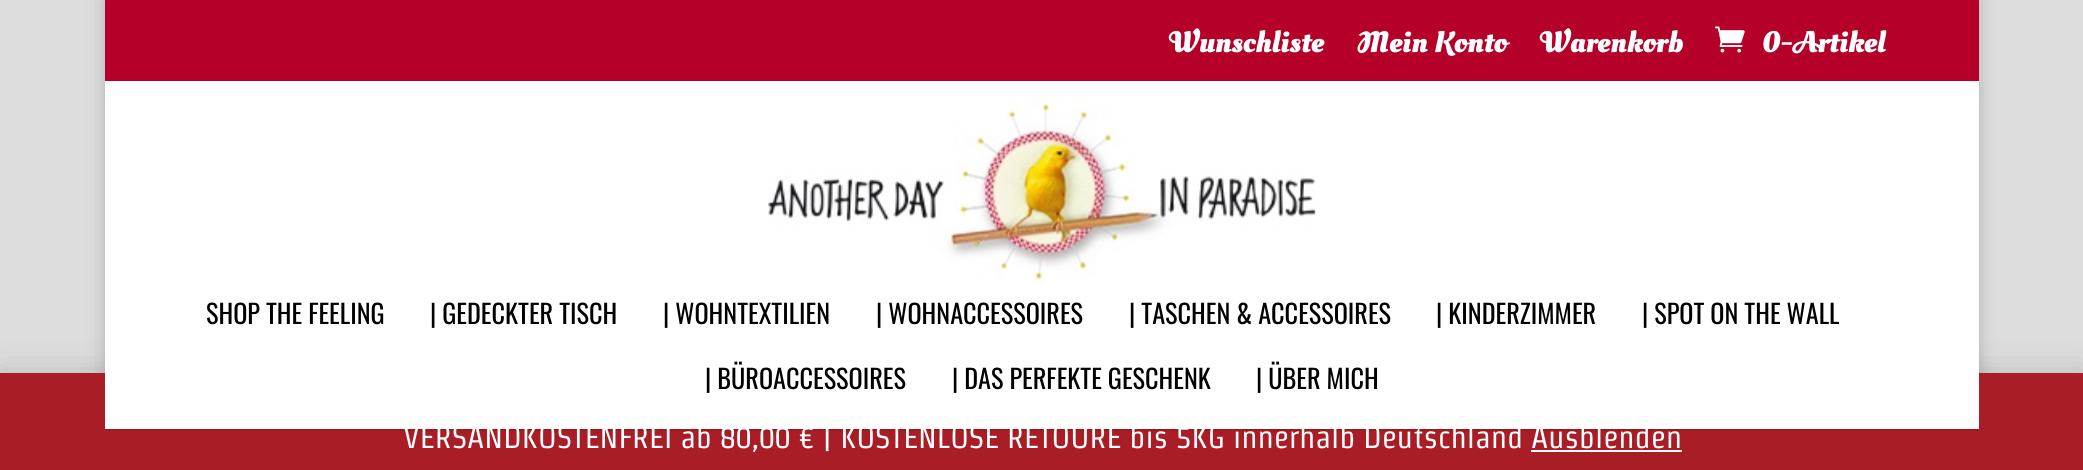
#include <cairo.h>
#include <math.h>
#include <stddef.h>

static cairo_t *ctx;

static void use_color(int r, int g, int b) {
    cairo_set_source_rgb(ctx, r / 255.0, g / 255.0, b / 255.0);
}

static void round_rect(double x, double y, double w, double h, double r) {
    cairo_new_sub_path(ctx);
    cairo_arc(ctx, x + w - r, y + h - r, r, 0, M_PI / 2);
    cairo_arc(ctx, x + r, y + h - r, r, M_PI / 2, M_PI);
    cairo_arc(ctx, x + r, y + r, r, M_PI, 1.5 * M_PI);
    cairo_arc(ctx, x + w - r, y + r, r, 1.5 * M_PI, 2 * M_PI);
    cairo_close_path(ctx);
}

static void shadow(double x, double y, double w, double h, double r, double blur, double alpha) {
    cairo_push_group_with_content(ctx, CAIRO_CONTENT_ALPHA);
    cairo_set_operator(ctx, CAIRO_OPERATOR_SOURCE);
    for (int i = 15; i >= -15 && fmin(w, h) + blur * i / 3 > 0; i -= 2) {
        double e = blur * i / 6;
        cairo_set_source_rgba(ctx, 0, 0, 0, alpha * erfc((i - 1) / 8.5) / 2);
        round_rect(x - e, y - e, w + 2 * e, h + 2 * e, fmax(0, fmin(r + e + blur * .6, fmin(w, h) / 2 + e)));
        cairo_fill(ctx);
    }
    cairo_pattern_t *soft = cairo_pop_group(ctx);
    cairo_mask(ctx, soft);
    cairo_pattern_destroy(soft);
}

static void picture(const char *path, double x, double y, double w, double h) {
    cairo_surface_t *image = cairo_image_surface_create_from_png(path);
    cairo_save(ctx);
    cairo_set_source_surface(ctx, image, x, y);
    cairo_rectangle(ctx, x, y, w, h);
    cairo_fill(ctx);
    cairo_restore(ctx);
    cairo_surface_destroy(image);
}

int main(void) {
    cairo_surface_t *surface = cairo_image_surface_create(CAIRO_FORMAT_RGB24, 2083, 470);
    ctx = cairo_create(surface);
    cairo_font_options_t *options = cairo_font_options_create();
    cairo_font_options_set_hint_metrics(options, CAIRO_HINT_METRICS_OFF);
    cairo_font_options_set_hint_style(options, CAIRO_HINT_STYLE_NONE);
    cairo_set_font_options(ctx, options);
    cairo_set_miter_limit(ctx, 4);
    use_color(221, 221, 221);
    cairo_paint(ctx);
    use_color(0, 0, 0);
    shadow(105, 0, 1874, 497, 0, 9, 0.2);
    use_color(181, 0, 42);
    cairo_rectangle(ctx, 105, 0, 1874, 81);
    cairo_fill(ctx);
    cairo_select_font_face(ctx, "Oleo Script Swash Caps", CAIRO_FONT_SLANT_NORMAL, CAIRO_FONT_WEIGHT_BOLD);
    cairo_set_font_size(ctx, 29.75);
    use_color(255, 255, 255);
    cairo_move_to(ctx, 1169, 52);
    cairo_show_text(ctx, "Wunschliste");
    cairo_move_to(ctx, 1357, 52);
    cairo_show_text(ctx, "Mein Konto");
    cairo_move_to(ctx, 1540, 52);
    cairo_show_text(ctx, "Warenkorb");
    picture("img1.png", 1715, 26, 30, 27);
    cairo_move_to(ctx, 1762, 52);
    cairo_show_text(ctx, "0-Artikel");
    use_color(0, 0, 0);
    shadow(0, 375, 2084, 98, 0, 16, 0.2);
    use_color(169, 29, 39);
    cairo_rectangle(ctx, 0, 373, 2083, 97);
    cairo_fill(ctx);
    cairo_set_source_rgba(ctx, 0, 0, 0, 0.1);
    cairo_rectangle(ctx, 105, 429, 1874, 2);
    cairo_fill(ctx);
    use_color(255, 255, 255);
    cairo_rectangle(ctx, 105, 81, 1874, 348);
    cairo_fill(ctx);
    picture("img2.png", 768, 96, 548, 189);
    cairo_select_font_face(ctx, "Oswald", CAIRO_FONT_SLANT_NORMAL, CAIRO_FONT_WEIGHT_NORMAL);
    cairo_set_font_size(ctx, 26.25);
    use_color(0, 0, 0);
    cairo_move_to(ctx, 206, 324);
    cairo_show_text(ctx, "SHOP THE FEELING");
    cairo_move_to(ctx, 430, 324);
    cairo_show_text(ctx, "| GEDECKTER TISCH");
    cairo_move_to(ctx, 663, 324);
    cairo_show_text(ctx, "| WOHNTEXTILIEN");
    cairo_move_to(ctx, 876, 324);
    cairo_show_text(ctx, "| WOHNACCESSOIRES");
    cairo_move_to(ctx, 1129, 324);
    cairo_show_text(ctx, "| TASCHEN & ACCESSOIRES");
    cairo_move_to(ctx, 1436, 324);
    cairo_show_text(ctx, "| KINDERZIMMER");
    cairo_move_to(ctx, 1642, 324);
    cairo_show_text(ctx, "| SPOT ON THE WALL");
    cairo_move_to(ctx, 705, 389);
    cairo_show_text(ctx, "| BÜROACCESSOIRES");
    cairo_move_to(ctx, 952, 389);
    cairo_show_text(ctx, "| DAS PERFEKTE GESCHENK");
    cairo_move_to(ctx, 1256, 389);
    cairo_show_text(ctx, "| ÜBER MICH");
    cairo_select_font_face(ctx, "Strait", CAIRO_FONT_SLANT_NORMAL, CAIRO_FONT_WEIGHT_NORMAL);
    cairo_set_font_size(ctx, 31.5);
    use_color(255, 255, 255);
    cairo_move_to(ctx, 403, 448);
    cairo_show_text(ctx, "VERSANDKOSTENFREI ab 80,00 € | KOSTENLOSE RETOURE bis 5KG innerhalb Deutschland Ausblenden");
    cairo_rectangle(ctx, 1531, 450, 151, 2);
    cairo_fill(ctx);
    cairo_surface_write_to_png(surface, "result.png");
    cairo_font_options_destroy(options);
    cairo_destroy(ctx);
    cairo_surface_destroy(surface);
    return 0;
}
